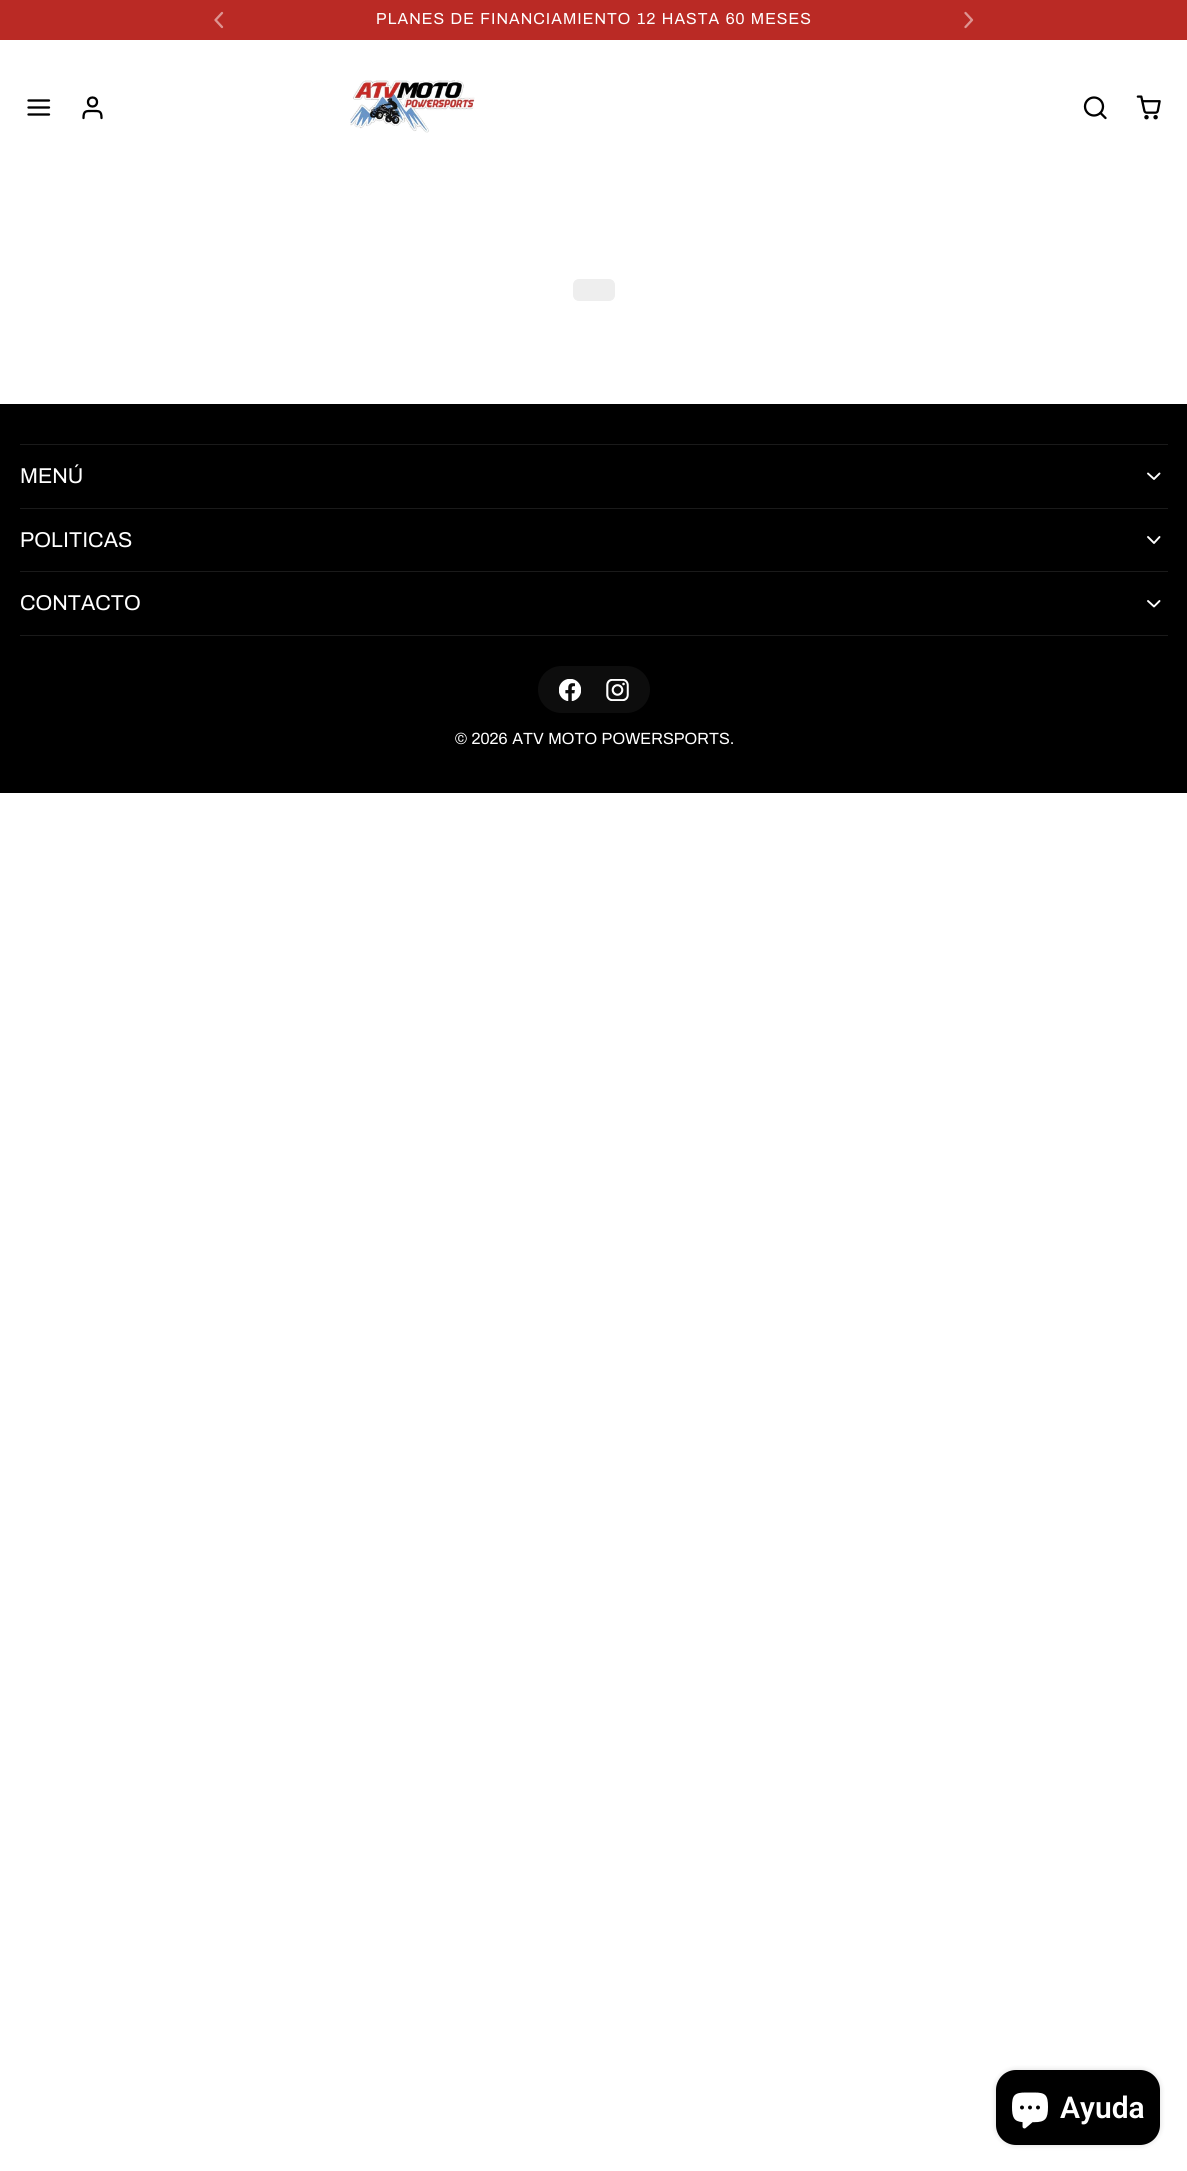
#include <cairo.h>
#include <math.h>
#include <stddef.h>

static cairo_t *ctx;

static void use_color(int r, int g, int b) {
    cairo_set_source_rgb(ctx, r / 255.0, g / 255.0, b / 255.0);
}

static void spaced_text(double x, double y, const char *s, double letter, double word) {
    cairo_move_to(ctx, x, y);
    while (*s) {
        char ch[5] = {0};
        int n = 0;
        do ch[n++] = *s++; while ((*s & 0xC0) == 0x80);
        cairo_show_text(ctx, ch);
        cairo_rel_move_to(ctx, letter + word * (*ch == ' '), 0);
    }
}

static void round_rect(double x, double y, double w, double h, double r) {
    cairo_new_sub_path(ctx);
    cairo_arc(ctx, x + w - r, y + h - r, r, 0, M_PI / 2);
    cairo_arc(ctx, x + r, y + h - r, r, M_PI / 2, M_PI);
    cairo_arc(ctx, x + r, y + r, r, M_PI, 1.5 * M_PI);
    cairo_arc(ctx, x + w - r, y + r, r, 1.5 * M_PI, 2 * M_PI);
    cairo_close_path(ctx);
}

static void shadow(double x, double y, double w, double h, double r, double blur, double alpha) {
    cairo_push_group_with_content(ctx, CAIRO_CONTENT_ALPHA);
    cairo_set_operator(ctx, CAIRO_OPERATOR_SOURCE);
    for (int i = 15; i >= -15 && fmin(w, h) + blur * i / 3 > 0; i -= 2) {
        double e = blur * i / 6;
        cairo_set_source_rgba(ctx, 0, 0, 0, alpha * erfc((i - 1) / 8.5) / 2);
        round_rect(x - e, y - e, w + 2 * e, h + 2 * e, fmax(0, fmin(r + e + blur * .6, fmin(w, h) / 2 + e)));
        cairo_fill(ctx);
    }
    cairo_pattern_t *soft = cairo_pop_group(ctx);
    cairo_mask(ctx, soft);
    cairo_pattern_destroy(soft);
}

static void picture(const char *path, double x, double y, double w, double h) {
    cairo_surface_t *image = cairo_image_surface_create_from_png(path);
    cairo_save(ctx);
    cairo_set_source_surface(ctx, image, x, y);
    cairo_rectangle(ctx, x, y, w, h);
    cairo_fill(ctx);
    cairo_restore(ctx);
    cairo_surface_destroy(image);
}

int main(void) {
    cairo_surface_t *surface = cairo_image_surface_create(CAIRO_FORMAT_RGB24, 1187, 2171);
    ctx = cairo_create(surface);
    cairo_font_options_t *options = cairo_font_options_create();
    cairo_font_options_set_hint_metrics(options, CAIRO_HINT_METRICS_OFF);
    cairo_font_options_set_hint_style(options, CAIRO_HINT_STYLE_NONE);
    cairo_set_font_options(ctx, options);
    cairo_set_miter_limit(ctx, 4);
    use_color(255, 255, 255);
    cairo_paint(ctx);
    use_color(186, 42, 37);
    cairo_rectangle(ctx, 0, 0, 1187, 40);
    cairo_fill(ctx);
    cairo_new_path(ctx);
    cairo_move_to(ctx, 222, 27);
    cairo_line_to(ctx, 215.5, 20);
    cairo_line_to(ctx, 222, 13);
    use_color(221, 149, 146);
    cairo_set_line_width(ctx, 2.3);
    cairo_set_line_cap(ctx, CAIRO_LINE_CAP_ROUND);
    cairo_set_line_join(ctx, CAIRO_LINE_JOIN_ROUND);
    cairo_stroke(ctx);
    cairo_select_font_face(ctx, "Archivo", CAIRO_FONT_SLANT_NORMAL, CAIRO_FONT_WEIGHT_NORMAL);
    cairo_set_font_size(ctx, 16);
    use_color(255, 255, 255);
    spaced_text(376, 24, "PLANES DE FINANCIAMIENTO 12 HASTA 60 MESES", 1, 0);
    cairo_new_path(ctx);
    cairo_move_to(ctx, 965.5, 27);
    cairo_line_to(ctx, 972, 20);
    cairo_line_to(ctx, 965.5, 13);
    use_color(221, 149, 146);
    cairo_stroke(ctx);
    cairo_new_path(ctx);
    cairo_move_to(ctx, 28.5, 107.5);
    cairo_line_to(ctx, 49, 107.5);
    cairo_move_to(ctx, 28.5, 100.5);
    cairo_line_to(ctx, 49, 100.5);
    cairo_move_to(ctx, 28.5, 114.5);
    cairo_line_to(ctx, 49, 114.5);
    use_color(0, 0, 0);
    cairo_stroke(ctx);
    cairo_new_path(ctx);
    cairo_move_to(ctx, 101.5, 118);
    cairo_curve_to(ctx, 101.5, 110.5, 99, 111, 92.5, 111);
    cairo_curve_to(ctx, 86, 111, 83.5, 110.5, 83.5, 118);
    cairo_stroke(ctx);
    cairo_arc(ctx, 92.5, 102, 4.5, 0, 2 * M_PI);
    cairo_set_line_cap(ctx, CAIRO_LINE_CAP_BUTT);
    cairo_set_line_join(ctx, CAIRO_LINE_JOIN_MITER);
    cairo_stroke(ctx);
    picture("img1.png", 350, 80, 125, 53);
    cairo_arc(ctx, 1094, 106.5, 9, 0, 2 * M_PI);
    cairo_stroke(ctx);
    cairo_new_path(ctx);
    cairo_move_to(ctx, 1105.5, 118);
    cairo_line_to(ctx, 1100.5, 113);
    cairo_set_line_cap(ctx, CAIRO_LINE_CAP_ROUND);
    cairo_set_line_join(ctx, CAIRO_LINE_JOIN_ROUND);
    cairo_stroke(ctx);
    picture("img2.png", 1136, 95, 25, 25);
    use_color(238, 238, 238);
    round_rect(573.5, 279.5, 41, 21, 5.5);
    cairo_fill_preserve(ctx);
    cairo_set_line_width(ctx, 1);
    cairo_set_line_cap(ctx, CAIRO_LINE_CAP_BUTT);
    cairo_set_line_join(ctx, CAIRO_LINE_JOIN_MITER);
    cairo_stroke(ctx);
    use_color(0, 0, 0);
    cairo_rectangle(ctx, 0, 404, 1187, 389);
    cairo_fill(ctx);
    use_color(26, 26, 26);
    cairo_rectangle(ctx, 20, 444, 1148, 1);
    cairo_fill(ctx);
    cairo_set_font_size(ctx, 21.5);
    use_color(255, 255, 255);
    cairo_move_to(ctx, 20, 483);
    cairo_show_text(ctx, "MENÚ");
    cairo_new_path(ctx);
    cairo_move_to(ctx, 1148, 473.5);
    cairo_line_to(ctx, 1154, 479);
    cairo_line_to(ctx, 1159.5, 473.5);
    cairo_set_line_width(ctx, 1.9);
    cairo_set_line_cap(ctx, CAIRO_LINE_CAP_ROUND);
    cairo_set_line_join(ctx, CAIRO_LINE_JOIN_ROUND);
    cairo_stroke(ctx);
    use_color(26, 26, 26);
    cairo_rectangle(ctx, 20, 508, 1148, 1);
    cairo_fill(ctx);
    use_color(255, 255, 255);
    cairo_move_to(ctx, 20, 547);
    cairo_show_text(ctx, "POLITICAS");
    cairo_new_path(ctx);
    cairo_move_to(ctx, 1148, 537);
    cairo_line_to(ctx, 1154, 543);
    cairo_line_to(ctx, 1159.5, 537);
    cairo_stroke(ctx);
    use_color(26, 26, 26);
    cairo_rectangle(ctx, 20, 571, 1148, 1);
    cairo_fill(ctx);
    cairo_rectangle(ctx, 20, 635, 1148, 1);
    cairo_fill(ctx);
    use_color(255, 255, 255);
    cairo_move_to(ctx, 20, 610);
    cairo_show_text(ctx, "CONTACTO");
    cairo_new_path(ctx);
    cairo_move_to(ctx, 1148, 601);
    cairo_line_to(ctx, 1154, 606.5);
    cairo_line_to(ctx, 1159.5, 601);
    cairo_stroke(ctx);
    use_color(13, 13, 13);
    round_rect(538, 666, 112, 47, 23.5);
    cairo_fill(ctx);
    picture("img3.png", 559, 679, 22, 22);
    picture("img4.png", 606, 679, 23, 22);
    cairo_set_font_size(ctx, 16.25);
    use_color(255, 255, 255);
    cairo_move_to(ctx, 455, 744);
    cairo_show_text(ctx, "© 2026 ATV MOTO POWERSPORTS.");
    use_color(0, 0, 0);
    shadow(996, 2070, 164, 75, 20, 3, 0.15);
    use_color(0, 0, 0);
    round_rect(996, 2070, 164, 75, 20);
    cairo_fill(ctx);
    picture("img5.png", 1012, 2092, 36, 37);
    cairo_select_font_face(ctx, "Roboto SemiBold", CAIRO_FONT_SLANT_NORMAL, CAIRO_FONT_WEIGHT_NORMAL);
    cairo_set_font_size(ctx, 30);
    use_color(255, 255, 255);
    cairo_move_to(ctx, 1060, 2118);
    cairo_show_text(ctx, "Ayuda");
    cairo_surface_write_to_png(surface, "result.png");
    cairo_font_options_destroy(options);
    cairo_destroy(ctx);
    cairo_surface_destroy(surface);
    return 0;
}
